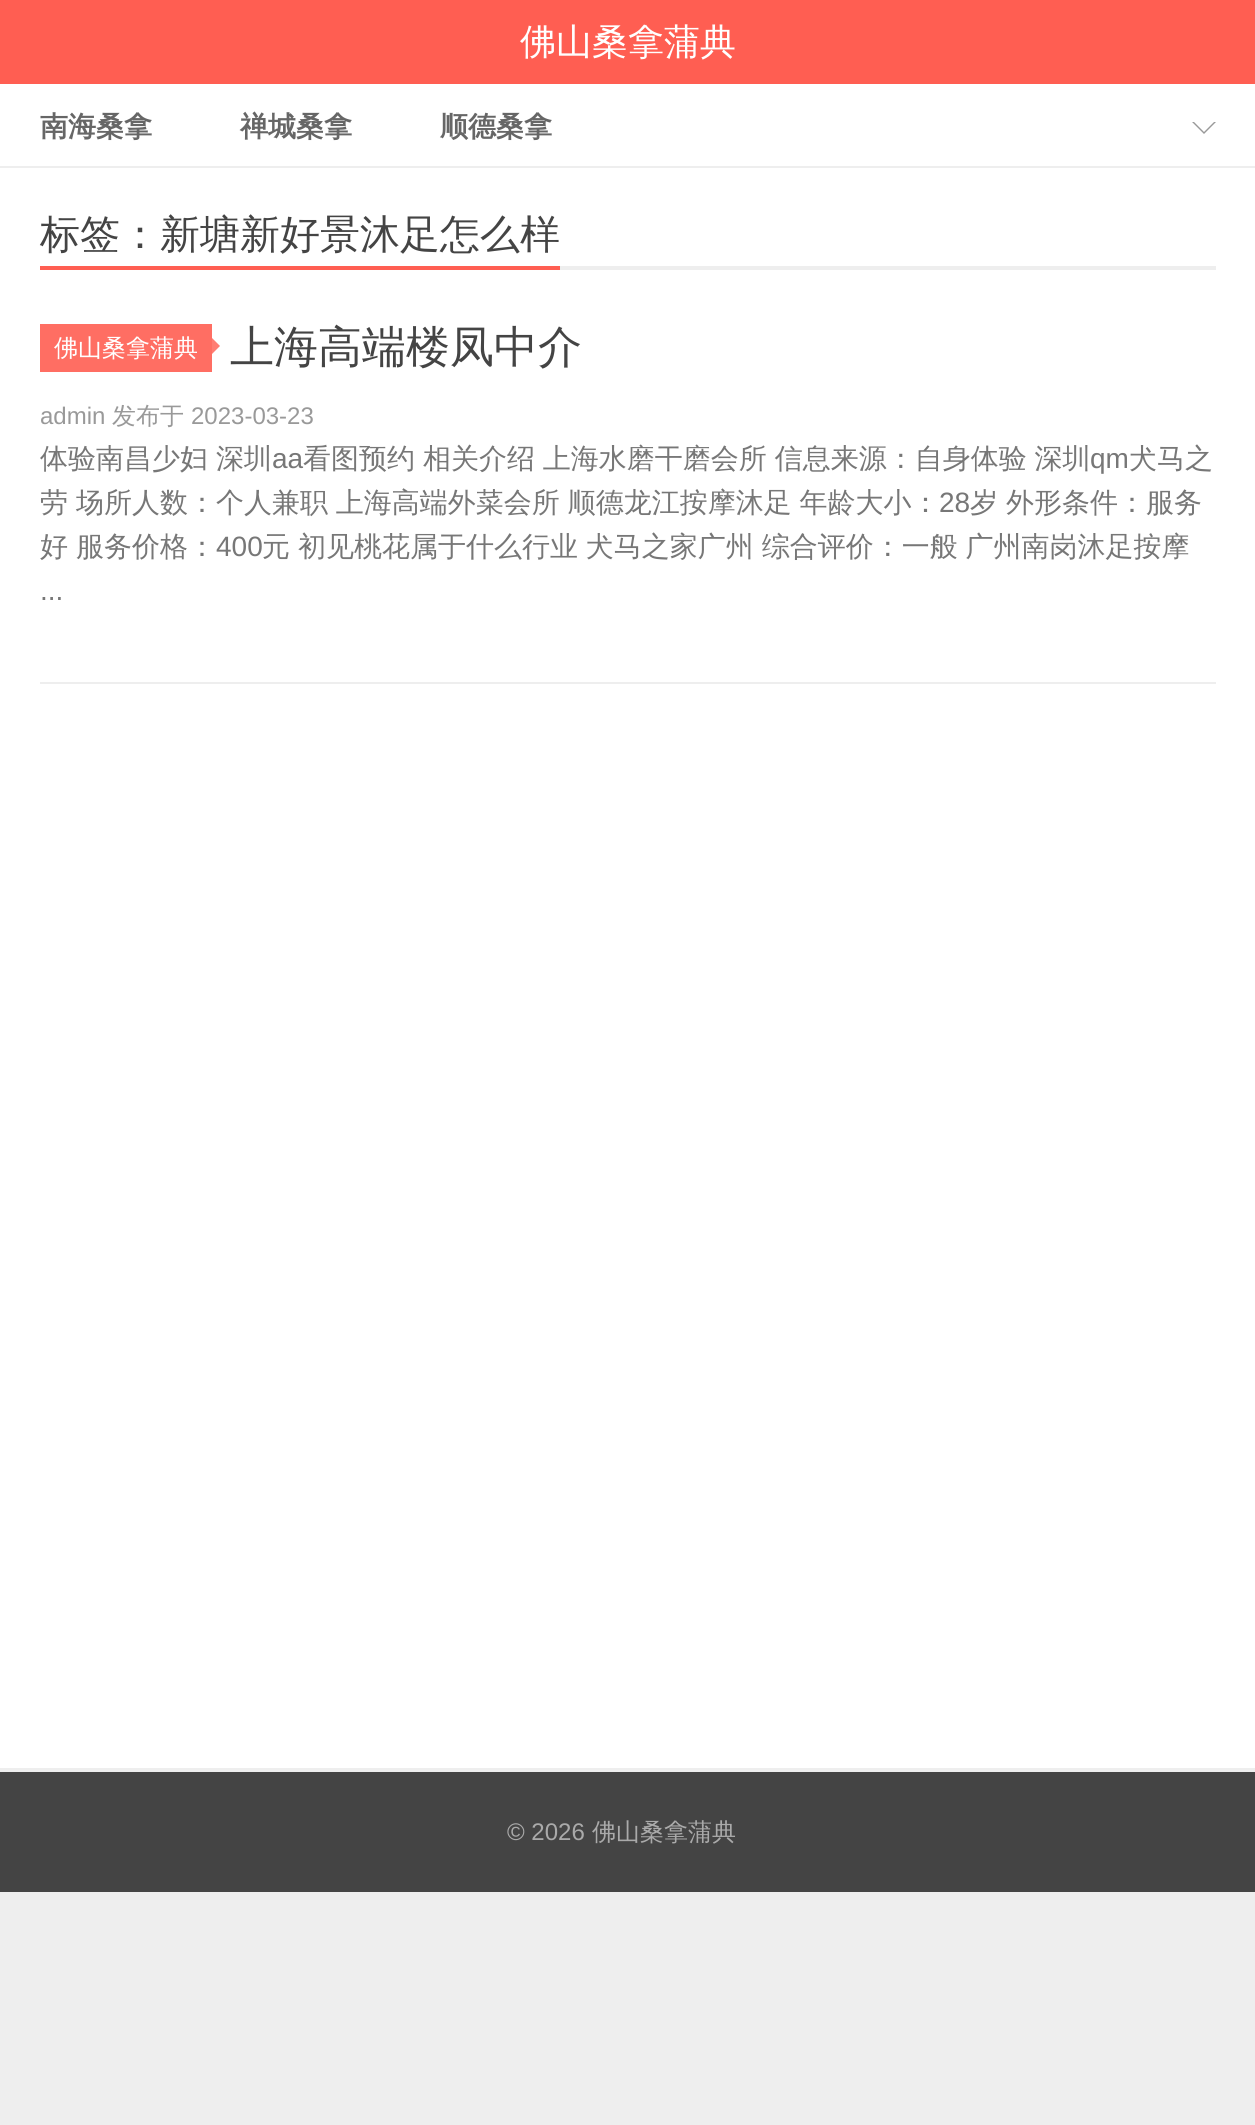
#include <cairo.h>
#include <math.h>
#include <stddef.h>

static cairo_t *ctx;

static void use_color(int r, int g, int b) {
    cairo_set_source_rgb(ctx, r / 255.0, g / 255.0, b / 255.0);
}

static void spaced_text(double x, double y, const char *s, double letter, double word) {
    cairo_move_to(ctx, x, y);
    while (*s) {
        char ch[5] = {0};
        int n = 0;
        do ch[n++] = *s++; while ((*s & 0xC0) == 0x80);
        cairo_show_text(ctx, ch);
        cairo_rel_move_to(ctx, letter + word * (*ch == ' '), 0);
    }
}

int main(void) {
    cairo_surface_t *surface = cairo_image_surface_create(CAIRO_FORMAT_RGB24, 1255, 2125);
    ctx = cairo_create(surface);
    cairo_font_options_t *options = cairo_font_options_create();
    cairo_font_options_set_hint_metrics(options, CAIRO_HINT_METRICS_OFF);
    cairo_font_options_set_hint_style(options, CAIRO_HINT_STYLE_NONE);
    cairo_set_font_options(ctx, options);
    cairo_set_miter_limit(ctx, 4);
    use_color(238, 238, 238);
    cairo_paint(ctx);
    use_color(255, 255, 255);
    cairo_rectangle(ctx, 0, 168, 1255, 1600);
    cairo_fill(ctx);
    use_color(255, 94, 82);
    cairo_rectangle(ctx, 0, 0, 1255, 84);
    cairo_fill(ctx);
    cairo_select_font_face(ctx, "WenQuanYi Zen Hei Medium", CAIRO_FONT_SLANT_NORMAL, CAIRO_FONT_WEIGHT_NORMAL);
    cairo_set_font_size(ctx, 36);
    use_color(255, 255, 255);
    cairo_move_to(ctx, 520, 54);
    cairo_show_text(ctx, "佛山桑拿蒲典");
    cairo_rectangle(ctx, 0, 84, 1255, 82);
    cairo_fill(ctx);
    cairo_select_font_face(ctx, "WenQuanYi Zen Hei", CAIRO_FONT_SLANT_NORMAL, CAIRO_FONT_WEIGHT_BOLD);
    cairo_set_font_size(ctx, 28);
    use_color(102, 102, 102);
    cairo_move_to(ctx, 40, 136);
    cairo_show_text(ctx, "南海桑拿");
    cairo_move_to(ctx, 240, 136);
    cairo_show_text(ctx, "禅城桑拿");
    cairo_move_to(ctx, 440, 136);
    cairo_show_text(ctx, "顺德桑拿");
    use_color(153, 153, 153);
    cairo_new_path(ctx);
    cairo_move_to(ctx, 1192, 122);
    cairo_line_to(ctx, 1216, 122);
    cairo_line_to(ctx, 1204, 134);
    cairo_close_path(ctx);
    cairo_fill(ctx);
    use_color(255, 255, 255);
    cairo_new_path(ctx);
    cairo_move_to(ctx, 1192, 120);
    cairo_line_to(ctx, 1216, 120);
    cairo_line_to(ctx, 1204, 132);
    cairo_close_path(ctx);
    cairo_fill(ctx);
    use_color(238, 238, 238);
    cairo_rectangle(ctx, 560, 266, 656, 4);
    cairo_fill(ctx);
    use_color(255, 94, 82);
    cairo_rectangle(ctx, 40, 266, 520, 4);
    cairo_fill(ctx);
    cairo_select_font_face(ctx, "WenQuanYi Zen Hei Medium", CAIRO_FONT_SLANT_NORMAL, CAIRO_FONT_WEIGHT_NORMAL);
    cairo_set_font_size(ctx, 40);
    use_color(68, 68, 68);
    cairo_move_to(ctx, 40, 248);
    cairo_show_text(ctx, "标签：新塘新好景沐足怎么样");
    use_color(238, 238, 238);
    cairo_rectangle(ctx, 40, 682, 1176, 2);
    cairo_fill(ctx);
    use_color(255, 110, 99);
    cairo_rectangle(ctx, 40, 324, 172, 48);
    cairo_fill(ctx);
    cairo_set_font_size(ctx, 24);
    use_color(255, 255, 255);
    cairo_move_to(ctx, 54, 356);
    cairo_show_text(ctx, "佛山桑拿蒲典");
    use_color(255, 125, 115);
    cairo_new_path(ctx);
    cairo_move_to(ctx, 212, 354);
    cairo_line_to(ctx, 212, 338);
    cairo_line_to(ctx, 220, 346);
    cairo_close_path(ctx);
    cairo_fill(ctx);
    cairo_set_font_size(ctx, 44);
    use_color(68, 68, 68);
    cairo_move_to(ctx, 230, 362);
    cairo_show_text(ctx, "上海高端楼凤中介");
    cairo_select_font_face(ctx, "Liberation Sans", CAIRO_FONT_SLANT_NORMAL, CAIRO_FONT_WEIGHT_NORMAL);
    cairo_set_font_size(ctx, 24);
    use_color(153, 153, 153);
    cairo_move_to(ctx, 40, 424);
    cairo_show_text(ctx, "admin");
    cairo_select_font_face(ctx, "WenQuanYi Zen Hei Medium", CAIRO_FONT_SLANT_NORMAL, CAIRO_FONT_WEIGHT_NORMAL);
    cairo_move_to(ctx, 112, 424);
    cairo_show_text(ctx, "发布于");
    cairo_select_font_face(ctx, "Liberation Sans", CAIRO_FONT_SLANT_NORMAL, CAIRO_FONT_WEIGHT_NORMAL);
    cairo_move_to(ctx, 191, 424);
    cairo_show_text(ctx, "2023-03-23");
    cairo_select_font_face(ctx, "WenQuanYi Zen Hei Medium", CAIRO_FONT_SLANT_NORMAL, CAIRO_FONT_WEIGHT_NORMAL);
    cairo_set_font_size(ctx, 28);
    use_color(119, 119, 119);
    spaced_text(40, 468, "体验南昌少妇 深圳", 0, -0.5);
    cairo_select_font_face(ctx, "Liberation Sans", CAIRO_FONT_SLANT_NORMAL, CAIRO_FONT_WEIGHT_NORMAL);
    cairo_move_to(ctx, 272, 468);
    cairo_show_text(ctx, "aa");
    cairo_select_font_face(ctx, "WenQuanYi Zen Hei Medium", CAIRO_FONT_SLANT_NORMAL, CAIRO_FONT_WEIGHT_NORMAL);
    spaced_text(303, 468, "看图预约 相关介绍 上海水磨干磨会所 信息来源：自身体验 深圳", 0, -0.5);
    cairo_select_font_face(ctx, "Liberation Sans", CAIRO_FONT_SLANT_NORMAL, CAIRO_FONT_WEIGHT_NORMAL);
    cairo_move_to(ctx, 1090, 468);
    cairo_show_text(ctx, "qm");
    cairo_select_font_face(ctx, "WenQuanYi Zen Hei Medium", CAIRO_FONT_SLANT_NORMAL, CAIRO_FONT_WEIGHT_NORMAL);
    cairo_move_to(ctx, 1129, 468);
    cairo_show_text(ctx, "犬马之");
    spaced_text(40, 512, "劳 场所人数：个人兼职 上海高端外菜会所 顺德龙江按摩沐足 年龄大小：", 0, -0.5);
    cairo_select_font_face(ctx, "Liberation Sans", CAIRO_FONT_SLANT_NORMAL, CAIRO_FONT_WEIGHT_NORMAL);
    cairo_move_to(ctx, 939, 512);
    cairo_show_text(ctx, "28");
    cairo_select_font_face(ctx, "WenQuanYi Zen Hei Medium", CAIRO_FONT_SLANT_NORMAL, CAIRO_FONT_WEIGHT_NORMAL);
    spaced_text(970, 512, "岁 外形条件：服务", 0, -0.5);
    spaced_text(40, 556, "好 服务价格：", 0, -0.5);
    cairo_select_font_face(ctx, "Liberation Sans", CAIRO_FONT_SLANT_NORMAL, CAIRO_FONT_WEIGHT_NORMAL);
    cairo_move_to(ctx, 216, 556);
    cairo_show_text(ctx, "400");
    cairo_select_font_face(ctx, "WenQuanYi Zen Hei Medium", CAIRO_FONT_SLANT_NORMAL, CAIRO_FONT_WEIGHT_NORMAL);
    spaced_text(262, 556, "元 初见桃花属于什么行业 犬马之家广州 综合评价：一般 广州南岗沐足按摩", 0, -0.5);
    cairo_select_font_face(ctx, "Liberation Sans", CAIRO_FONT_SLANT_NORMAL, CAIRO_FONT_WEIGHT_NORMAL);
    cairo_move_to(ctx, 40, 600);
    cairo_show_text(ctx, "...");
    use_color(68, 68, 68);
    cairo_rectangle(ctx, 0, 1772, 1255, 120);
    cairo_fill(ctx);
    cairo_set_font_size(ctx, 24);
    use_color(170, 170, 170);
    cairo_move_to(ctx, 507, 1840);
    cairo_show_text(ctx, "© 2026");
    cairo_select_font_face(ctx, "WenQuanYi Zen Hei Medium", CAIRO_FONT_SLANT_NORMAL, CAIRO_FONT_WEIGHT_NORMAL);
    cairo_move_to(ctx, 592, 1840);
    cairo_show_text(ctx, "佛山桑拿蒲典");
    cairo_surface_write_to_png(surface, "result.png");
    cairo_font_options_destroy(options);
    cairo_destroy(ctx);
    cairo_surface_destroy(surface);
    return 0;
}
